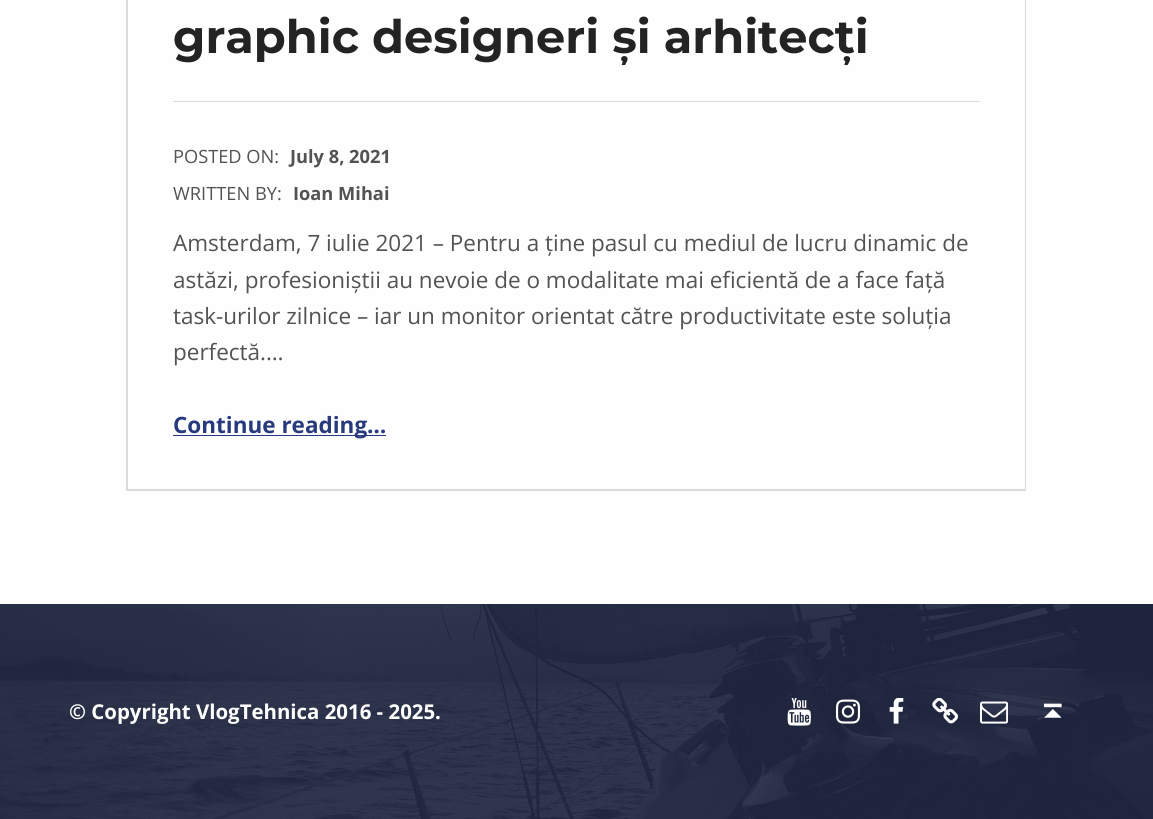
#include <cairo.h>
#include <math.h>
#include <stddef.h>

static cairo_t *ctx;

static void use_color(int r, int g, int b) {
    cairo_set_source_rgb(ctx, r / 255.0, g / 255.0, b / 255.0);
}

static void picture(const char *path, double x, double y, double w, double h) {
    cairo_surface_t *image = cairo_image_surface_create_from_png(path);
    cairo_save(ctx);
    cairo_set_source_surface(ctx, image, x, y);
    cairo_rectangle(ctx, x, y, w, h);
    cairo_fill(ctx);
    cairo_restore(ctx);
    cairo_surface_destroy(image);
}

int main(void) {
    cairo_surface_t *surface = cairo_image_surface_create(CAIRO_FORMAT_RGB24, 1153, 819);
    ctx = cairo_create(surface);
    cairo_font_options_t *options = cairo_font_options_create();
    cairo_font_options_set_hint_metrics(options, CAIRO_HINT_METRICS_OFF);
    cairo_font_options_set_hint_style(options, CAIRO_HINT_STYLE_NONE);
    cairo_set_font_options(ctx, options);
    cairo_set_miter_limit(ctx, 4);
    use_color(254, 254, 255);
    cairo_paint(ctx);
    use_color(220, 220, 221);
    cairo_new_path(ctx);
    cairo_move_to(ctx, 1026, -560);
    cairo_line_to(ctx, 1026, 491);
    cairo_line_to(ctx, 1025, 489);
    cairo_line_to(ctx, 1025, -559);
    cairo_close_path(ctx);
    cairo_fill(ctx);
    cairo_set_source_rgba(ctx, 0.325, 0.325, 0.329, 0.2);
    cairo_new_path(ctx);
    cairo_move_to(ctx, 1026, 491);
    cairo_line_to(ctx, 126, 491);
    cairo_line_to(ctx, 128, 489);
    cairo_line_to(ctx, 1025, 489);
    cairo_close_path(ctx);
    cairo_fill(ctx);
    cairo_new_path(ctx);
    cairo_move_to(ctx, 126, 491);
    cairo_line_to(ctx, 126, -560);
    cairo_line_to(ctx, 128, -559);
    cairo_line_to(ctx, 128, 489);
    cairo_close_path(ctx);
    cairo_fill(ctx);
    use_color(220, 220, 221);
    cairo_rectangle(ctx, 173, 101, 807, 1);
    cairo_fill(ctx);
    cairo_select_font_face(ctx, "Montserrat", CAIRO_FONT_SLANT_NORMAL, CAIRO_FONT_WEIGHT_BOLD);
    cairo_set_font_size(ctx, 46.25);
    use_color(35, 35, 36);
    cairo_move_to(ctx, 173, 53);
    cairo_show_text(ctx, "graphic designeri și arhitecți");
    cairo_select_font_face(ctx, "Open Sans", CAIRO_FONT_SLANT_NORMAL, CAIRO_FONT_WEIGHT_NORMAL);
    cairo_set_font_size(ctx, 18.25);
    use_color(83, 83, 84);
    cairo_move_to(ctx, 173, 163);
    cairo_show_text(ctx, "POSTED ON:");
    cairo_select_font_face(ctx, "Open Sans", CAIRO_FONT_SLANT_NORMAL, CAIRO_FONT_WEIGHT_BOLD);
    cairo_move_to(ctx, 290, 163);
    cairo_show_text(ctx, "July 8, 2021");
    cairo_select_font_face(ctx, "Open Sans", CAIRO_FONT_SLANT_NORMAL, CAIRO_FONT_WEIGHT_NORMAL);
    cairo_move_to(ctx, 173, 200);
    cairo_show_text(ctx, "WRITTEN BY:");
    cairo_select_font_face(ctx, "Open Sans", CAIRO_FONT_SLANT_NORMAL, CAIRO_FONT_WEIGHT_BOLD);
    cairo_move_to(ctx, 293, 200);
    cairo_show_text(ctx, "Ioan Mihai");
    cairo_select_font_face(ctx, "Open Sans", CAIRO_FONT_SLANT_NORMAL, CAIRO_FONT_WEIGHT_NORMAL);
    cairo_set_font_size(ctx, 22.5);
    cairo_move_to(ctx, 173, 251);
    cairo_show_text(ctx, "Amsterdam, 7 iulie 2021 – Pentru a ține pasul cu mediul de lucru dinamic de");
    cairo_move_to(ctx, 173, 288);
    cairo_show_text(ctx, "astăzi, profesioniștii au nevoie de o modalitate mai eficientă de a face față");
    cairo_move_to(ctx, 173, 324);
    cairo_show_text(ctx, "task-urilor zilnice – iar un monitor orientat către productivitate este soluția");
    cairo_move_to(ctx, 173, 360);
    cairo_show_text(ctx, "perfectă.…");
    use_color(39, 58, 125);
    cairo_rectangle(ctx, 173, 435, 213, 1);
    cairo_fill(ctx);
    cairo_select_font_face(ctx, "Open Sans", CAIRO_FONT_SLANT_NORMAL, CAIRO_FONT_WEIGHT_BOLD);
    cairo_move_to(ctx, 173, 433);
    cairo_show_text(ctx, "Continue reading…");
    use_color(29, 36, 61);
    cairo_rectangle(ctx, 0, 604, 1153, 215);
    cairo_fill(ctx);
    picture("img1.png", 0, 604, 1153, 215);
    cairo_set_font_size(ctx, 20.4);
    use_color(255, 255, 255);
    cairo_move_to(ctx, 69, 719);
    cairo_show_text(ctx, "© Copyright VlogTehnica 2016 - 2025.");
    picture("img2.png", 787, 698, 24, 28);
    picture("img3.png", 835, 699, 26, 25);
    picture("img4.png", 889, 698, 15, 26);
    picture("img5.png", 932, 698, 26, 26);
    picture("img6.png", 980, 701, 28, 23);
    picture("img7.png", 1044, 703, 18, 15);
    cairo_surface_write_to_png(surface, "result.png");
    cairo_font_options_destroy(options);
    cairo_destroy(ctx);
    cairo_surface_destroy(surface);
    return 0;
}
